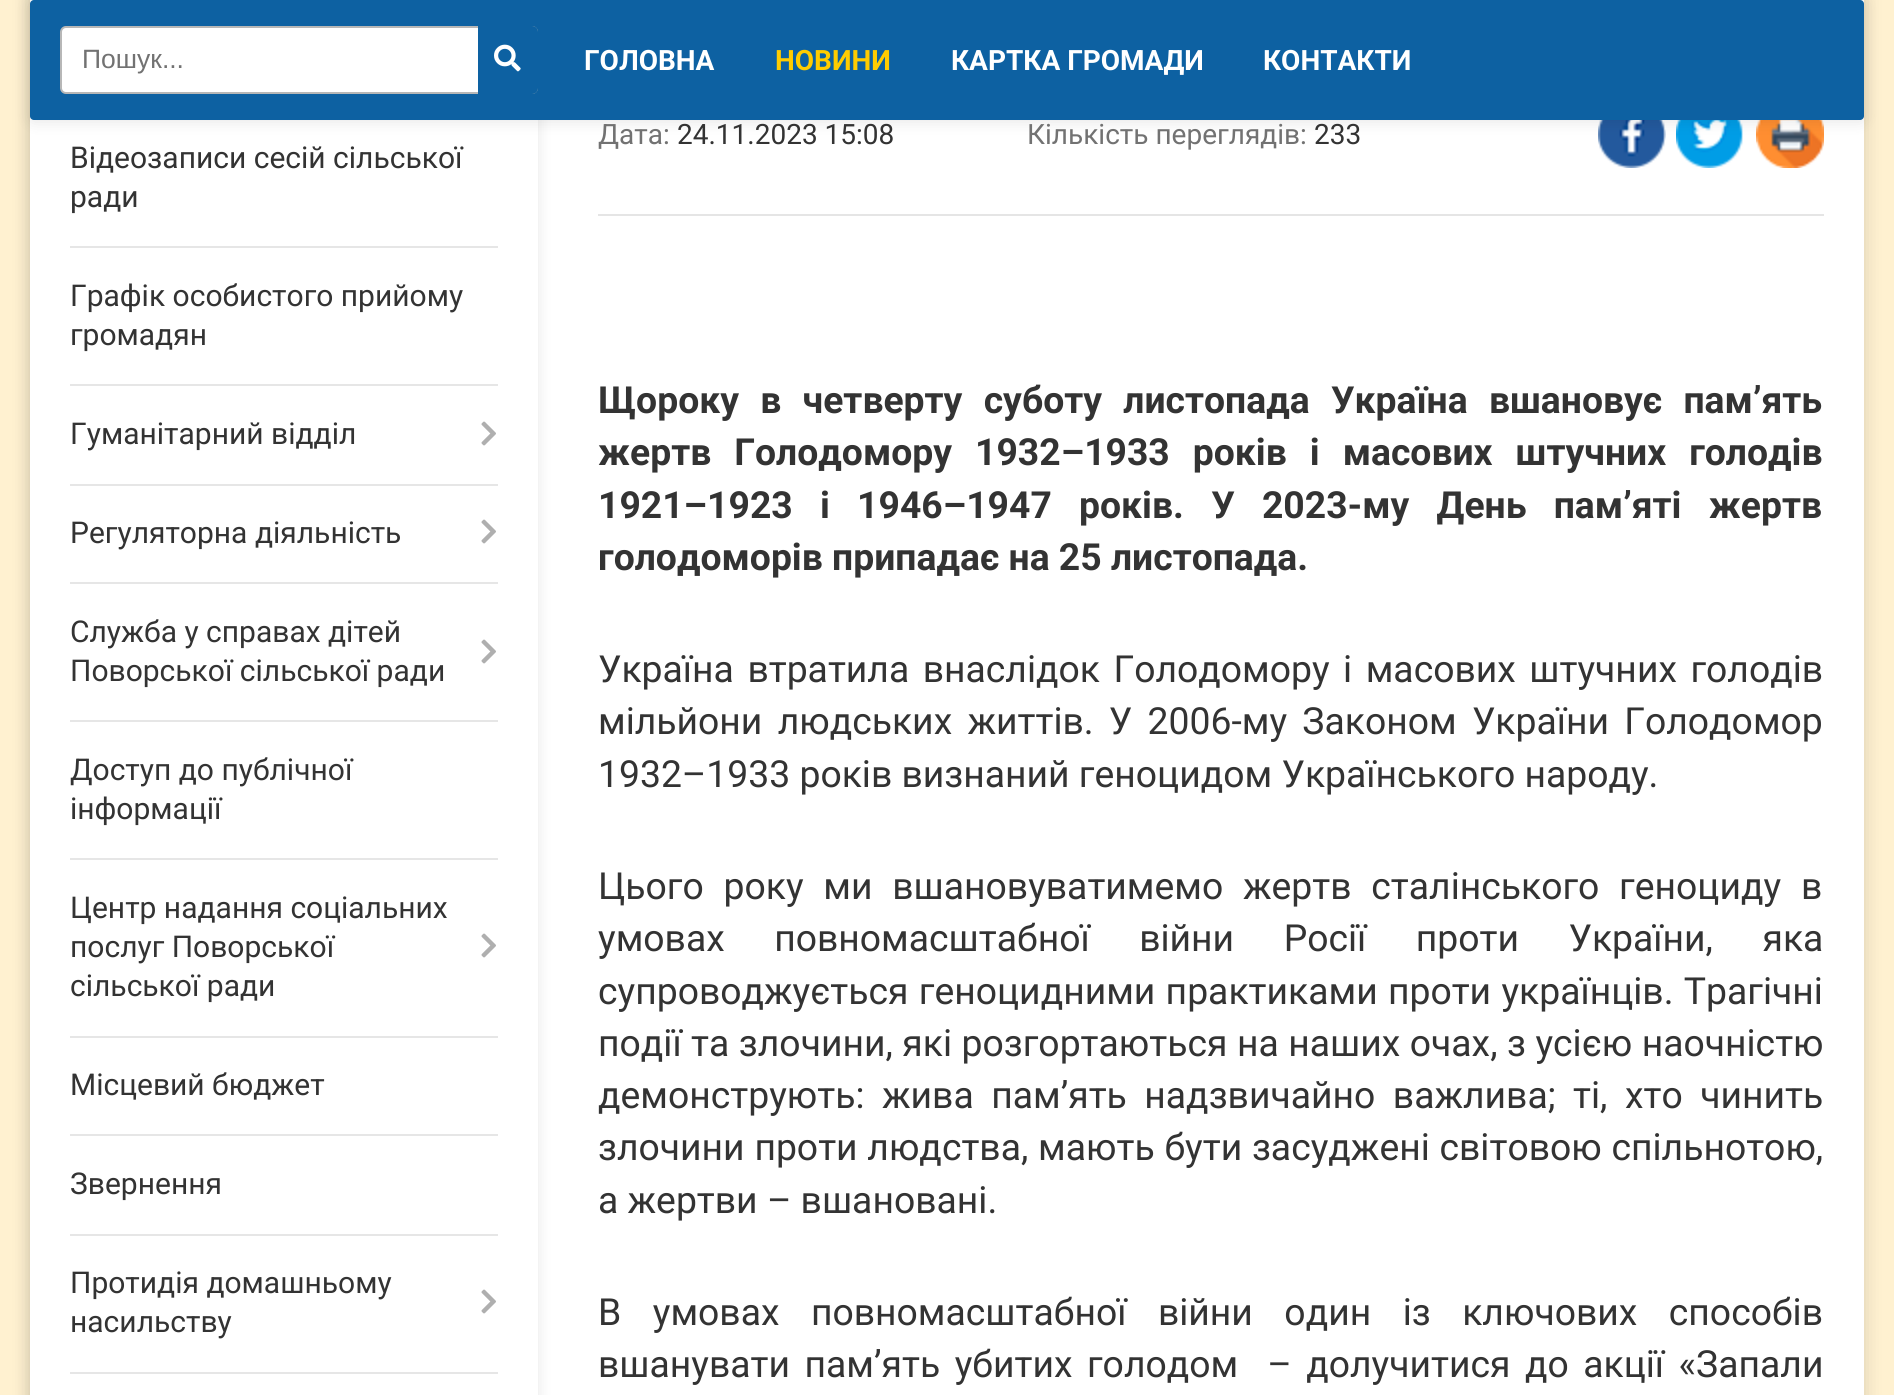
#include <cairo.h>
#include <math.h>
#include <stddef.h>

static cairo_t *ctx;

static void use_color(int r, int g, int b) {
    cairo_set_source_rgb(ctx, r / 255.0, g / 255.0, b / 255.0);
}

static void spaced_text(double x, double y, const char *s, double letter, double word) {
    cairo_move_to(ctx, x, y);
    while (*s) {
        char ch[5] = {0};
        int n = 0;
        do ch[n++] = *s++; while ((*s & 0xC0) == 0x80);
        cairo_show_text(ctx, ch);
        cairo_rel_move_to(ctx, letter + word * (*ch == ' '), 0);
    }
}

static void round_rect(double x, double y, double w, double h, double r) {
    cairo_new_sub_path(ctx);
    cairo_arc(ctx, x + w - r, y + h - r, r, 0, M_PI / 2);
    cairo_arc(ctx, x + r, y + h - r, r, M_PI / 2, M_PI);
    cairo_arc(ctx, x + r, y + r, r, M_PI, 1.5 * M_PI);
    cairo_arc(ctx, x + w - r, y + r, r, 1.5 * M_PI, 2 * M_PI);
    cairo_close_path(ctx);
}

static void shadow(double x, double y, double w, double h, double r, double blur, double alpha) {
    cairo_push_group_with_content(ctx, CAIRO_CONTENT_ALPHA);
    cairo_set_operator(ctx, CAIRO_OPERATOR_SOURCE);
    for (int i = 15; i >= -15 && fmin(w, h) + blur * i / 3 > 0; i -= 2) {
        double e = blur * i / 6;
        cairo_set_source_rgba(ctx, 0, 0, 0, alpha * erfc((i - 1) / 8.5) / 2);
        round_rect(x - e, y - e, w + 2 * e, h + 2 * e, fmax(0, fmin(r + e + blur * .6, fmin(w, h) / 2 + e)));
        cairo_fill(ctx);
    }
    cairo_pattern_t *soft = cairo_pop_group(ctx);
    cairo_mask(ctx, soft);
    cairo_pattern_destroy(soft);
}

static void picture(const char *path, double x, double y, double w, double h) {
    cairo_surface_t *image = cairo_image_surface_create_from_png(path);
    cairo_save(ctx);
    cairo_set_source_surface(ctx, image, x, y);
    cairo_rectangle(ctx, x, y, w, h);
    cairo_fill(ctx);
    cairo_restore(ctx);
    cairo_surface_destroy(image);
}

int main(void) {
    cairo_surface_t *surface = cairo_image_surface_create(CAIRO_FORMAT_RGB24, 1894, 1395);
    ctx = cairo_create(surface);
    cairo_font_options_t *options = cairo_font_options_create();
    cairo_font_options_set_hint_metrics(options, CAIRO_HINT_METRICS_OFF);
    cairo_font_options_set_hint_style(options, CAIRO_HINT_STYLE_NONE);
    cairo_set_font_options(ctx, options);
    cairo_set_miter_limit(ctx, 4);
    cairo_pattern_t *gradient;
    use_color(255, 255, 255);
    cairo_paint(ctx);
    gradient = cairo_pattern_create_linear(947, -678, 947, 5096);
    cairo_pattern_add_color_stop_rgba(gradient, 0.07, 1, 0.945, 0.816, 0);
    cairo_pattern_add_color_stop_rgba(gradient, 0.1, 1, 0.945, 0.816, 1);
    cairo_set_source(ctx, gradient);
    cairo_pattern_destroy(gradient);
    cairo_rectangle(ctx, 0, 0, 1894, 1395);
    cairo_fill(ctx);
    use_color(0, 0, 0);
    shadow(30, -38, 1834, 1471, 8, 10, 0.15);
    use_color(255, 255, 255);
    cairo_rectangle(ctx, 30, 0, 1834, 1395);
    cairo_fill(ctx);
    cairo_save(ctx);
    cairo_set_fill_rule(ctx, CAIRO_FILL_RULE_EVEN_ODD);
    cairo_new_path(ctx);
    cairo_move_to(ctx, 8, 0);
    cairo_line_to(ctx, 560, 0);
    cairo_line_to(ctx, 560, 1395);
    cairo_line_to(ctx, 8, 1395);
    cairo_close_path(ctx);
    cairo_move_to(ctx, 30, -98);
    cairo_line_to(ctx, 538, -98);
    cairo_line_to(ctx, 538, 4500);
    cairo_line_to(ctx, 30, 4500);
    cairo_close_path(ctx);
    cairo_clip(ctx);
    use_color(0, 0, 0);
    shadow(30, -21, 508, 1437, 0, 7, 0.1);
    cairo_restore(ctx);
    cairo_select_font_face(ctx, "Roboto", CAIRO_FONT_SLANT_NORMAL, CAIRO_FONT_WEIGHT_NORMAL);
    cairo_set_font_size(ctx, 30);
    use_color(51, 51, 51);
    cairo_move_to(ctx, 70, 168);
    cairo_show_text(ctx, "Відеозаписи сесій сільської");
    cairo_move_to(ctx, 70, 207);
    cairo_show_text(ctx, "ради");
    use_color(230, 230, 230);
    cairo_rectangle(ctx, 70, 246, 428, 2);
    cairo_fill(ctx);
    use_color(51, 51, 51);
    cairo_move_to(ctx, 70, 306);
    cairo_show_text(ctx, "Графік особистого прийому");
    cairo_move_to(ctx, 70, 345);
    cairo_show_text(ctx, "громадян");
    use_color(230, 230, 230);
    cairo_rectangle(ctx, 70, 384, 428, 2);
    cairo_fill(ctx);
    use_color(51, 51, 51);
    cairo_move_to(ctx, 70, 444);
    cairo_show_text(ctx, "Гуманітарний відділ");
    use_color(230, 230, 230);
    cairo_rectangle(ctx, 70, 484, 428, 2);
    cairo_fill(ctx);
    picture("img1.png", 481, 421, 15, 25);
    use_color(51, 51, 51);
    cairo_move_to(ctx, 70, 543);
    cairo_show_text(ctx, "Регуляторна діяльність");
    use_color(230, 230, 230);
    cairo_rectangle(ctx, 70, 582, 428, 2);
    cairo_fill(ctx);
    picture("img1.png", 481, 519, 15, 25);
    use_color(51, 51, 51);
    cairo_move_to(ctx, 70, 642);
    cairo_show_text(ctx, "Служба у справах дітей");
    cairo_move_to(ctx, 70, 681);
    cairo_show_text(ctx, "Поворської сільської ради");
    use_color(230, 230, 230);
    cairo_rectangle(ctx, 70, 720, 428, 2);
    cairo_fill(ctx);
    picture("img1.png", 481, 639, 15, 25);
    use_color(51, 51, 51);
    cairo_move_to(ctx, 70, 780);
    cairo_show_text(ctx, "Доступ до публічної");
    cairo_move_to(ctx, 70, 819);
    cairo_show_text(ctx, "інформації");
    use_color(230, 230, 230);
    cairo_rectangle(ctx, 70, 858, 428, 2);
    cairo_fill(ctx);
    use_color(51, 51, 51);
    cairo_move_to(ctx, 70, 918);
    cairo_show_text(ctx, "Центр надання соціальних");
    cairo_move_to(ctx, 70, 957);
    cairo_show_text(ctx, "послуг Поворської");
    cairo_move_to(ctx, 70, 996);
    cairo_show_text(ctx, "сільської ради");
    use_color(230, 230, 230);
    cairo_rectangle(ctx, 70, 1036, 428, 2);
    cairo_fill(ctx);
    picture("img1.png", 481, 933, 15, 25);
    use_color(51, 51, 51);
    cairo_move_to(ctx, 70, 1095);
    cairo_show_text(ctx, "Місцевий бюджет");
    use_color(230, 230, 230);
    cairo_rectangle(ctx, 70, 1134, 428, 2);
    cairo_fill(ctx);
    use_color(51, 51, 51);
    cairo_move_to(ctx, 70, 1194);
    cairo_show_text(ctx, "Звернення");
    use_color(230, 230, 230);
    cairo_rectangle(ctx, 70, 1234, 428, 2);
    cairo_fill(ctx);
    use_color(51, 51, 51);
    cairo_move_to(ctx, 70, 1293);
    cairo_show_text(ctx, "Протидія домашньому");
    cairo_move_to(ctx, 70, 1332);
    cairo_show_text(ctx, "насильству");
    use_color(230, 230, 230);
    cairo_rectangle(ctx, 70, 1372, 428, 2);
    cairo_fill(ctx);
    picture("img1.png", 481, 1289, 15, 25);
    picture("img2.png", 1598, 120, 68, 48);
    picture("img3.png", 1676, 120, 67, 48);
    picture("img4.png", 1756, 120, 68, 48);
    use_color(0, 0, 0);
    shadow(30, 2, 1834, 120, 4, 7, 0.1);
    use_color(13, 97, 162);
    round_rect(30, 0, 1834, 120, 4);
    cairo_fill(ctx);
    cairo_select_font_face(ctx, "Roboto", CAIRO_FONT_SLANT_NORMAL, CAIRO_FONT_WEIGHT_BOLD);
    cairo_set_font_size(ctx, 28);
    use_color(255, 255, 255);
    cairo_move_to(ctx, 584, 70);
    cairo_show_text(ctx, "ГОЛОВНА");
    use_color(255, 204, 0);
    cairo_move_to(ctx, 775, 70);
    cairo_show_text(ctx, "НОВИНИ");
    use_color(255, 255, 255);
    cairo_move_to(ctx, 951, 70);
    cairo_show_text(ctx, "КАРТКА ГРОМАДИ");
    cairo_move_to(ctx, 1263, 70);
    cairo_show_text(ctx, "КОНТАКТИ");
    cairo_select_font_face(ctx, "Roboto", CAIRO_FONT_SLANT_NORMAL, CAIRO_FONT_WEIGHT_NORMAL);
    use_color(114, 114, 114);
    cairo_move_to(ctx, 598, 144);
    cairo_show_text(ctx, "Дата:");
    use_color(51, 51, 51);
    cairo_move_to(ctx, 677, 144);
    cairo_show_text(ctx, "24.11.2023 15:08");
    use_color(114, 114, 114);
    cairo_move_to(ctx, 1027, 144);
    cairo_show_text(ctx, "Кількість переглядів:");
    use_color(51, 51, 51);
    cairo_move_to(ctx, 1314, 144);
    cairo_show_text(ctx, "233");
    use_color(229, 229, 229);
    cairo_rectangle(ctx, 598, 214, 1226, 2);
    cairo_fill(ctx);
    cairo_select_font_face(ctx, "Roboto", CAIRO_FONT_SLANT_NORMAL, CAIRO_FONT_WEIGHT_BOLD);
    cairo_set_font_size(ctx, 37.3);
    use_color(51, 51, 51);
    spaced_text(598, 413, "Щороку в четверту суботу листопада Україна вшановує пам’ять", 0, 12);
    spaced_text(598, 465, "жертв Голодомору 1932–1933 років і масових штучних голодів", 0, 13.75);
    spaced_text(598, 518, "1921–1923 і 1946–1947 років. У 2023-му День пам’яті жертв", 0, 18);
    cairo_move_to(ctx, 598, 570);
    cairo_show_text(ctx, "голодоморів припадає на 25 листопада.");
    cairo_select_font_face(ctx, "Roboto", CAIRO_FONT_SLANT_NORMAL, CAIRO_FONT_WEIGHT_NORMAL);
    spaced_text(598, 682, "Україна втратила внаслідок Голодомору і масових штучних голодів", 0, 4.25);
    spaced_text(598, 734, "мільйони людських життів. У 2006-му Законом України Голодомор", 0, 6);
    cairo_move_to(ctx, 598, 787);
    cairo_show_text(ctx, "1932–1933 років визнаний геноцидом Українського народу.");
    spaced_text(598, 899, "Цього року ми вшановуватимемо жертв сталінського геноциду в", 0, 10.5);
    spaced_text(598, 951, "умовах повномасштабної війни Росії проти України, яка", 0, 40.25);
    spaced_text(598, 1004, "супроводжується геноцидними практиками проти українців. Трагічні", 0, 1);
    spaced_text(598, 1056, "події та злочини, які розгортаються на наших очах, з усією наочністю", 0, 0.25);
    spaced_text(598, 1108, "демонструють: жива пам’ять надзвичайно важлива; ті, хто чинить", 0, 8.25);
    spaced_text(598, 1160, "злочини проти людства, мають бути засуджені світовою спільнотою,", 0, 0.5);
    cairo_move_to(ctx, 598, 1213);
    cairo_show_text(ctx, "а жертви – вшановані.");
    spaced_text(598, 1325, "В умовах повномасштабної війни один із ключових способів", 0, 22.25);
    spaced_text(598, 1377, "вшанувати пам’ять убитих голодом  – долучитися до акції «Запали", 0, 5.25);
    use_color(255, 255, 255);
    round_rect(61, 27, 476, 66, 5);
    cairo_fill_preserve(ctx);
    use_color(183, 183, 183);
    cairo_stroke(ctx);
    cairo_select_font_face(ctx, "Liberation Sans", CAIRO_FONT_SLANT_NORMAL, CAIRO_FONT_WEIGHT_NORMAL);
    cairo_set_font_size(ctx, 26.5);
    use_color(114, 114, 114);
    cairo_move_to(ctx, 82, 68);
    cairo_show_text(ctx, "Пошук...");
    use_color(13, 97, 162);
    cairo_new_path(ctx);
    cairo_move_to(ctx, 478, 26);
    cairo_line_to(ctx, 532, 26);
    cairo_curve_to(ctx, 535.5, 26, 538, 28.5, 538, 32);
    cairo_line_to(ctx, 538, 88);
    cairo_curve_to(ctx, 538, 91.5, 535.5, 94, 532, 94);
    cairo_line_to(ctx, 478, 94);
    cairo_close_path(ctx);
    cairo_fill(ctx);
    picture("img5.png", 494, 44, 27, 28);
    cairo_surface_write_to_png(surface, "result.png");
    cairo_font_options_destroy(options);
    cairo_destroy(ctx);
    cairo_surface_destroy(surface);
    return 0;
}
